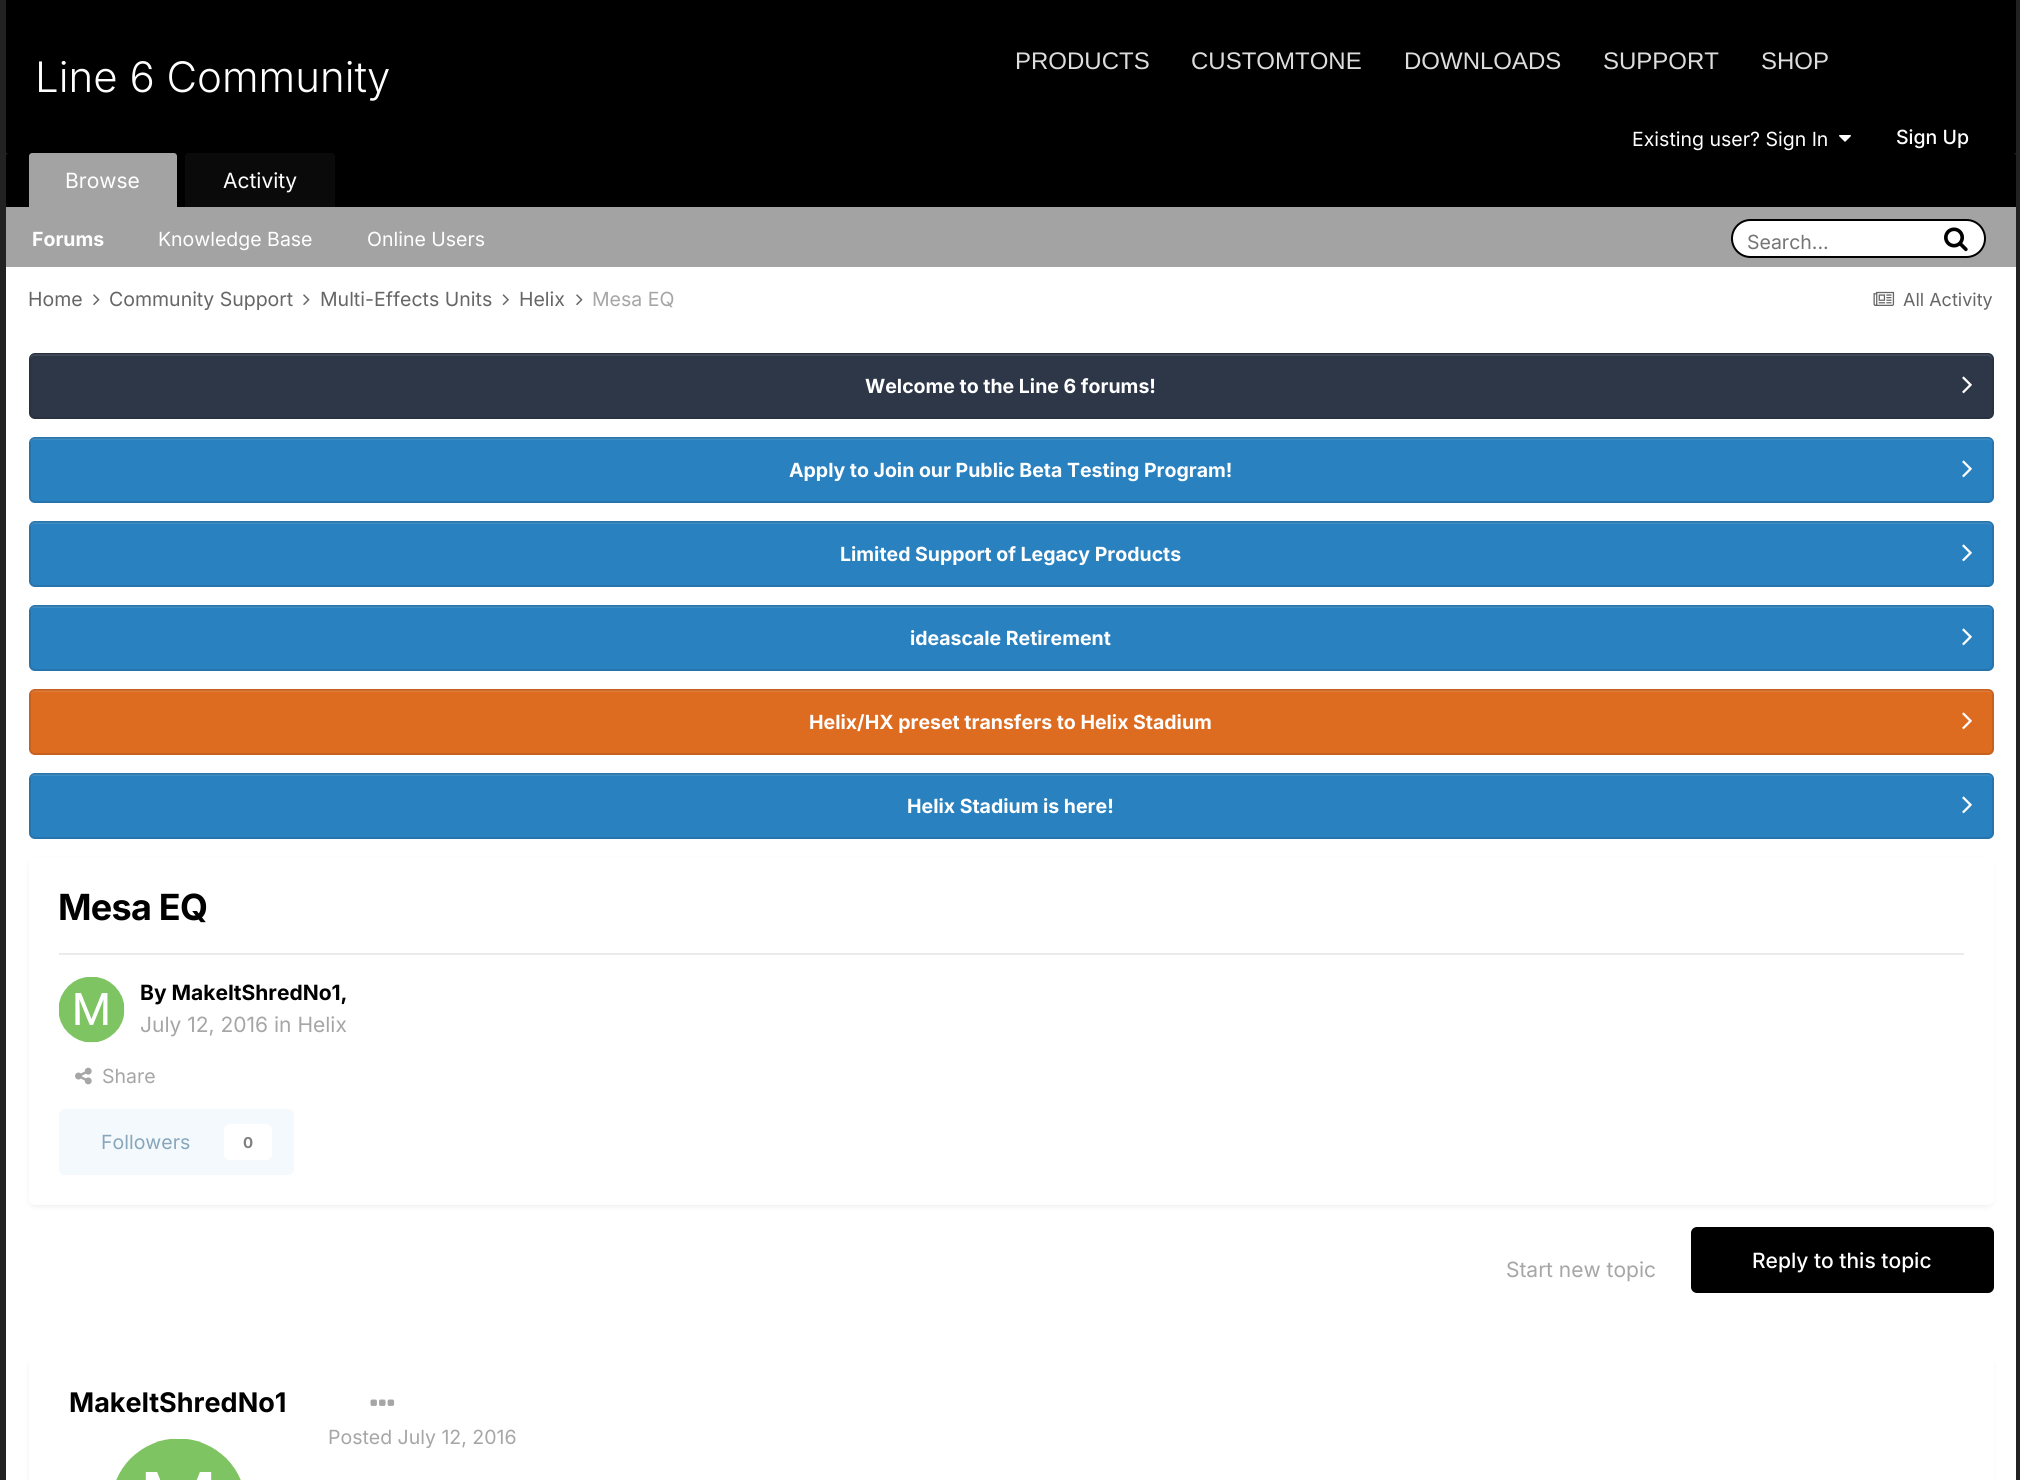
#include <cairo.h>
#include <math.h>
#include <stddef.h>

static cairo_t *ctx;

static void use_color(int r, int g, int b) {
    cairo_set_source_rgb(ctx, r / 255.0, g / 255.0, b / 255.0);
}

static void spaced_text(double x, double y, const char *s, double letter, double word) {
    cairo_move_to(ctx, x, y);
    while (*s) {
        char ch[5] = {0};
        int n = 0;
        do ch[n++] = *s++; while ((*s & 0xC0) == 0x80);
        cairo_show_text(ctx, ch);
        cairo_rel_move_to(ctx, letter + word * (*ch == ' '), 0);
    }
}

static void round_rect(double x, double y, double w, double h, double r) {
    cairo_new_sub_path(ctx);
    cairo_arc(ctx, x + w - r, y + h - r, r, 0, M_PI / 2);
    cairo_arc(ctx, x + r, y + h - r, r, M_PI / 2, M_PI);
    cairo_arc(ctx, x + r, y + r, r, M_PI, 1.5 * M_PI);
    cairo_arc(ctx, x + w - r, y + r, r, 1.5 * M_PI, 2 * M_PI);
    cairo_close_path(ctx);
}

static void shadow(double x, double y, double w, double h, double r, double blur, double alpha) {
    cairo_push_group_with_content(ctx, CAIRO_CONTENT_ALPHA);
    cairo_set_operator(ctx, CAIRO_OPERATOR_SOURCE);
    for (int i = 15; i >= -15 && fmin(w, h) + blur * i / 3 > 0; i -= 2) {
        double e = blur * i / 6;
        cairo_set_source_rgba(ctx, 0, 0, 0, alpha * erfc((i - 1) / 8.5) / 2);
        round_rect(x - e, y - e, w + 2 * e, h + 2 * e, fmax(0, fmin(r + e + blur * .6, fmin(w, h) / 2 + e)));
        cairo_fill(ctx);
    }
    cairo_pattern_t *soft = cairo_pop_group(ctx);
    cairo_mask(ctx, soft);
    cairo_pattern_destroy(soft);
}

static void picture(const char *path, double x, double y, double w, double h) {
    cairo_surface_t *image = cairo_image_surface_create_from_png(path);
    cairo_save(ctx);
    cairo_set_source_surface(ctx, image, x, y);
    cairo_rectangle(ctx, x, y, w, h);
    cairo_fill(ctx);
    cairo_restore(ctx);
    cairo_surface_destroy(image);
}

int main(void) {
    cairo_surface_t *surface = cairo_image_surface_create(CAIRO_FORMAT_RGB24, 2020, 1480);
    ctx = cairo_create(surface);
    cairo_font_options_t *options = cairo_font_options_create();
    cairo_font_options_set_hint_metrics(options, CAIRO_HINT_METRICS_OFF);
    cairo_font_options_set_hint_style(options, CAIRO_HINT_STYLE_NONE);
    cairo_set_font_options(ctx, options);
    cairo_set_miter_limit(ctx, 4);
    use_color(34, 34, 34);
    cairo_paint(ctx);
    use_color(0, 0, 0);
    cairo_rectangle(ctx, 6, 0, 2010, 153);
    cairo_fill(ctx);
    cairo_select_font_face(ctx, "Inter Light", CAIRO_FONT_SLANT_NORMAL, CAIRO_FONT_WEIGHT_NORMAL);
    cairo_set_font_size(ctx, 42);
    use_color(255, 255, 255);
    cairo_move_to(ctx, 35, 92);
    cairo_show_text(ctx, "Line 6 Community");
    cairo_select_font_face(ctx, "Liberation Sans", CAIRO_FONT_SLANT_NORMAL, CAIRO_FONT_WEIGHT_NORMAL);
    cairo_set_font_size(ctx, 24);
    use_color(221, 221, 221);
    cairo_move_to(ctx, 1015, 69);
    cairo_show_text(ctx, "PRODUCTS");
    cairo_move_to(ctx, 1191, 69);
    cairo_show_text(ctx, "CUSTOMTONE");
    cairo_move_to(ctx, 1404, 69);
    cairo_show_text(ctx, "DOWNLOADS");
    cairo_move_to(ctx, 1603, 69);
    cairo_show_text(ctx, "SUPPORT");
    cairo_move_to(ctx, 1761, 69);
    cairo_show_text(ctx, "SHOP");
    cairo_select_font_face(ctx, "Inter", CAIRO_FONT_SLANT_NORMAL, CAIRO_FONT_WEIGHT_NORMAL);
    cairo_set_font_size(ctx, 19.5);
    use_color(255, 255, 255);
    cairo_move_to(ctx, 1632, 146);
    cairo_show_text(ctx, "Existing user? Sign In");
    picture("img1.png", 1839, 135, 12, 7);
    cairo_select_font_face(ctx, "Inter Medium", CAIRO_FONT_SLANT_NORMAL, CAIRO_FONT_WEIGHT_NORMAL);
    cairo_move_to(ctx, 1896, 144);
    cairo_show_text(ctx, "Sign Up");
    use_color(0, 0, 0);
    cairo_new_path(ctx);
    cairo_move_to(ctx, 9, 153);
    cairo_line_to(ctx, 2013, 153);
    cairo_curve_to(ctx, 2014.5, 153, 2016, 154.5, 2016, 156);
    cairo_line_to(ctx, 2016, 267);
    cairo_line_to(ctx, 6, 267);
    cairo_line_to(ctx, 6, 156);
    cairo_curve_to(ctx, 6, 154.5, 7.5, 153, 9, 153);
    cairo_close_path(ctx);
    cairo_fill(ctx);
    use_color(163, 163, 163);
    cairo_new_path(ctx);
    cairo_move_to(ctx, 32, 153);
    cairo_line_to(ctx, 174, 153);
    cairo_curve_to(ctx, 175.5, 153, 177, 154.5, 177, 156);
    cairo_line_to(ctx, 177, 207);
    cairo_line_to(ctx, 29, 207);
    cairo_line_to(ctx, 29, 156);
    cairo_curve_to(ctx, 29, 154.5, 30.5, 153, 32, 153);
    cairo_close_path(ctx);
    cairo_fill(ctx);
    cairo_select_font_face(ctx, "Inter", CAIRO_FONT_SLANT_NORMAL, CAIRO_FONT_WEIGHT_NORMAL);
    cairo_set_font_size(ctx, 21);
    use_color(255, 255, 255);
    cairo_move_to(ctx, 65, 188);
    cairo_show_text(ctx, "Browse");
    use_color(163, 163, 163);
    cairo_rectangle(ctx, 6, 207, 2010, 60);
    cairo_fill(ctx);
    cairo_select_font_face(ctx, "Inter", CAIRO_FONT_SLANT_NORMAL, CAIRO_FONT_WEIGHT_BOLD);
    cairo_set_font_size(ctx, 19.5);
    use_color(255, 255, 255);
    cairo_move_to(ctx, 32, 246);
    cairo_show_text(ctx, "Forums");
    cairo_select_font_face(ctx, "Inter", CAIRO_FONT_SLANT_NORMAL, CAIRO_FONT_WEIGHT_NORMAL);
    cairo_move_to(ctx, 158, 246);
    cairo_show_text(ctx, "Knowledge Base");
    cairo_move_to(ctx, 367, 246);
    cairo_show_text(ctx, "Online Users");
    use_color(10, 10, 10);
    cairo_new_path(ctx);
    cairo_move_to(ctx, 188, 153);
    cairo_line_to(ctx, 332, 153);
    cairo_curve_to(ctx, 333.5, 153, 335, 154.5, 335, 156);
    cairo_line_to(ctx, 335, 207);
    cairo_line_to(ctx, 185, 207);
    cairo_line_to(ctx, 185, 156);
    cairo_curve_to(ctx, 185, 154.5, 186.5, 153, 188, 153);
    cairo_close_path(ctx);
    cairo_fill(ctx);
    cairo_set_font_size(ctx, 21);
    use_color(255, 255, 255);
    cairo_move_to(ctx, 223, 188);
    cairo_show_text(ctx, "Activity");
    round_rect(1732, 220, 253, 37, 18.5);
    cairo_fill_preserve(ctx);
    use_color(0, 0, 0);
    cairo_stroke(ctx);
    cairo_set_font_size(ctx, 19.5);
    use_color(117, 117, 117);
    cairo_move_to(ctx, 1747, 249);
    cairo_show_text(ctx, "Search...");
    picture("img2.png", 1944, 227, 24, 25);
    use_color(255, 255, 255);
    cairo_rectangle(ctx, 6, 267, 2010, 1213);
    cairo_fill(ctx);
    use_color(102, 102, 102);
    cairo_move_to(ctx, 28, 306);
    cairo_show_text(ctx, "Home");
    picture("img3.png", 93, 294, 7, 11);
    cairo_move_to(ctx, 109, 306);
    cairo_show_text(ctx, "Community Support");
    picture("img3.png", 303, 294, 7, 11);
    cairo_move_to(ctx, 320, 306);
    cairo_show_text(ctx, "Multi-Effects Units");
    picture("img4.png", 502, 294, 7, 12);
    cairo_move_to(ctx, 519, 306);
    cairo_show_text(ctx, "Helix");
    picture("img3.png", 576, 294, 7, 11);
    use_color(166, 166, 166);
    cairo_move_to(ctx, 592, 306);
    cairo_show_text(ctx, "Mesa EQ");
    picture("img5.png", 1873, 291, 22, 15);
    cairo_set_font_size(ctx, 18);
    use_color(102, 102, 102);
    cairo_move_to(ctx, 1903, 306);
    cairo_show_text(ctx, "All Activity");
    use_color(45, 55, 72);
    round_rect(29, 353, 1965, 66, 6);
    cairo_fill(ctx);
    use_color(66, 75, 90);
    cairo_new_path(ctx);
    cairo_move_to(ctx, 34, 356);
    cairo_line_to(ctx, 1988, 356);
    cairo_curve_to(ctx, 1990, 356, 1992, 358, 1992, 360);
    cairo_line_to(ctx, 1992, 359);
    cairo_curve_to(ctx, 1992, 356, 1990, 354, 1987, 354);
    cairo_line_to(ctx, 35, 354);
    cairo_curve_to(ctx, 32, 354, 30, 356, 30, 359);
    cairo_line_to(ctx, 30, 360);
    cairo_curve_to(ctx, 30, 358, 32, 356, 34, 356);
    cairo_close_path(ctx);
    cairo_fill(ctx);
    round_rect(30, 354, 1963, 64, 5);
    cairo_set_source_rgba(ctx, 0, 0, 0, 0.1);
    cairo_stroke(ctx);
    cairo_select_font_face(ctx, "Inter", CAIRO_FONT_SLANT_NORMAL, CAIRO_FONT_WEIGHT_BOLD);
    cairo_set_font_size(ctx, 19.5);
    use_color(255, 255, 255);
    cairo_move_to(ctx, 865, 393);
    cairo_show_text(ctx, "Welcome to the Line 6 forums!");
    picture("img6.png", 1962, 376, 10, 18);
    use_color(41, 129, 191);
    round_rect(29, 437, 1965, 66, 6);
    cairo_fill(ctx);
    use_color(62, 142, 197);
    cairo_new_path(ctx);
    cairo_move_to(ctx, 34, 440);
    cairo_line_to(ctx, 1988, 440);
    cairo_curve_to(ctx, 1990, 440, 1992, 442, 1992, 444);
    cairo_line_to(ctx, 1992, 443);
    cairo_curve_to(ctx, 1992, 440, 1990, 438, 1987, 438);
    cairo_line_to(ctx, 35, 438);
    cairo_curve_to(ctx, 32, 438, 30, 440, 30, 443);
    cairo_line_to(ctx, 30, 444);
    cairo_curve_to(ctx, 30, 442, 32, 440, 34, 440);
    cairo_close_path(ctx);
    cairo_fill(ctx);
    round_rect(30, 438, 1963, 64, 5);
    cairo_set_source_rgba(ctx, 0, 0, 0, 0.1);
    cairo_stroke(ctx);
    use_color(255, 255, 255);
    cairo_move_to(ctx, 789, 477);
    cairo_show_text(ctx, "Apply to Join our Public Beta Testing Program!");
    picture("img7.png", 1962, 460, 10, 18);
    use_color(41, 129, 191);
    round_rect(29, 521, 1965, 66, 6);
    cairo_fill(ctx);
    use_color(62, 142, 197);
    cairo_new_path(ctx);
    cairo_move_to(ctx, 34, 524);
    cairo_line_to(ctx, 1988, 524);
    cairo_curve_to(ctx, 1990, 524, 1992, 526, 1992, 528);
    cairo_line_to(ctx, 1992, 527);
    cairo_curve_to(ctx, 1992, 524, 1990, 522, 1987, 522);
    cairo_line_to(ctx, 35, 522);
    cairo_curve_to(ctx, 32, 522, 30, 524, 30, 527);
    cairo_line_to(ctx, 30, 528);
    cairo_curve_to(ctx, 30, 526, 32, 524, 34, 524);
    cairo_close_path(ctx);
    cairo_fill(ctx);
    round_rect(30, 522, 1963, 64, 5);
    cairo_set_source_rgba(ctx, 0, 0, 0, 0.1);
    cairo_stroke(ctx);
    use_color(255, 255, 255);
    cairo_move_to(ctx, 840, 561);
    cairo_show_text(ctx, "Limited Support of Legacy Products");
    picture("img7.png", 1962, 544, 10, 18);
    use_color(41, 129, 191);
    round_rect(29, 605, 1965, 66, 6);
    cairo_fill(ctx);
    use_color(62, 142, 197);
    cairo_new_path(ctx);
    cairo_move_to(ctx, 34, 608);
    cairo_line_to(ctx, 1988, 608);
    cairo_curve_to(ctx, 1990, 608, 1992, 610, 1992, 612);
    cairo_line_to(ctx, 1992, 611);
    cairo_curve_to(ctx, 1992, 608, 1990, 606, 1987, 606);
    cairo_line_to(ctx, 35, 606);
    cairo_curve_to(ctx, 32, 606, 30, 608, 30, 611);
    cairo_line_to(ctx, 30, 612);
    cairo_curve_to(ctx, 30, 610, 32, 608, 34, 608);
    cairo_close_path(ctx);
    cairo_fill(ctx);
    round_rect(30, 606, 1963, 64, 5);
    cairo_set_source_rgba(ctx, 0, 0, 0, 0.1);
    cairo_stroke(ctx);
    use_color(255, 255, 255);
    cairo_move_to(ctx, 910, 645);
    cairo_show_text(ctx, "ideascale Retirement");
    picture("img7.png", 1962, 628, 10, 18);
    use_color(221, 107, 32);
    round_rect(29, 689, 1965, 66, 6);
    cairo_fill(ctx);
    use_color(224, 122, 54);
    cairo_new_path(ctx);
    cairo_move_to(ctx, 34, 692);
    cairo_line_to(ctx, 1988, 692);
    cairo_curve_to(ctx, 1990, 692, 1992, 694, 1992, 696);
    cairo_line_to(ctx, 1992, 695);
    cairo_curve_to(ctx, 1992, 692, 1990, 690, 1987, 690);
    cairo_line_to(ctx, 35, 690);
    cairo_curve_to(ctx, 32, 690, 30, 692, 30, 695);
    cairo_line_to(ctx, 30, 696);
    cairo_curve_to(ctx, 30, 694, 32, 692, 34, 692);
    cairo_close_path(ctx);
    cairo_fill(ctx);
    round_rect(30, 690, 1963, 64, 5);
    cairo_set_source_rgba(ctx, 0, 0, 0, 0.1);
    cairo_stroke(ctx);
    use_color(255, 255, 255);
    cairo_move_to(ctx, 809, 729);
    cairo_show_text(ctx, "Helix/HX preset transfers to Helix Stadium");
    picture("img8.png", 1962, 712, 10, 18);
    use_color(41, 129, 191);
    round_rect(29, 773, 1965, 66, 6);
    cairo_fill(ctx);
    use_color(62, 142, 197);
    cairo_new_path(ctx);
    cairo_move_to(ctx, 34, 776);
    cairo_line_to(ctx, 1988, 776);
    cairo_curve_to(ctx, 1990, 776, 1992, 778, 1992, 780);
    cairo_line_to(ctx, 1992, 779);
    cairo_curve_to(ctx, 1992, 776, 1990, 774, 1987, 774);
    cairo_line_to(ctx, 35, 774);
    cairo_curve_to(ctx, 32, 774, 30, 776, 30, 779);
    cairo_line_to(ctx, 30, 780);
    cairo_curve_to(ctx, 30, 778, 32, 776, 34, 776);
    cairo_close_path(ctx);
    cairo_fill(ctx);
    round_rect(30, 774, 1963, 64, 5);
    cairo_set_source_rgba(ctx, 0, 0, 0, 0.1);
    cairo_stroke(ctx);
    use_color(255, 255, 255);
    cairo_move_to(ctx, 907, 813);
    cairo_show_text(ctx, "Helix Stadium is here!");
    picture("img7.png", 1962, 796, 10, 18);
    use_color(45, 55, 72);
    shadow(30, 861, 1962, 345, 5, 3, 0.1);
    use_color(255, 255, 255);
    round_rect(29, 857, 1965, 348, 6);
    cairo_fill(ctx);
    cairo_set_font_size(ctx, 36);
    use_color(0, 0, 0);
    spaced_text(58, 920, "Mesa EQ", -0.75, 0);
    use_color(235, 235, 235);
    cairo_rectangle(ctx, 59, 953, 1905, 2);
    cairo_fill(ctx);
    picture("img9.png", 59, 977, 66, 66);
    cairo_set_font_size(ctx, 21);
    use_color(0, 0, 0);
    cairo_move_to(ctx, 140, 1000);
    cairo_show_text(ctx, "By MakeItShredNo1,");
    cairo_select_font_face(ctx, "Inter", CAIRO_FONT_SLANT_NORMAL, CAIRO_FONT_WEIGHT_NORMAL);
    use_color(166, 166, 166);
    cairo_move_to(ctx, 140, 1032);
    cairo_show_text(ctx, "July 12, 2016 in Helix");
    picture("img10.png", 75, 1067, 17, 18);
    cairo_set_font_size(ctx, 19.5);
    cairo_move_to(ctx, 102, 1083);
    cairo_show_text(ctx, "Share");
    use_color(244, 249, 253);
    round_rect(59, 1109, 235, 66, 6);
    cairo_fill(ctx);
    use_color(135, 166, 188);
    cairo_move_to(ctx, 101, 1149);
    cairo_show_text(ctx, "Followers");
    use_color(255, 255, 255);
    round_rect(224, 1124, 48, 36, 6);
    cairo_fill(ctx);
    cairo_select_font_face(ctx, "Inter", CAIRO_FONT_SLANT_NORMAL, CAIRO_FONT_WEIGHT_BOLD);
    cairo_set_font_size(ctx, 15);
    use_color(128, 128, 128);
    cairo_move_to(ctx, 243, 1148);
    cairo_show_text(ctx, "0");
    cairo_select_font_face(ctx, "Inter", CAIRO_FONT_SLANT_NORMAL, CAIRO_FONT_WEIGHT_NORMAL);
    cairo_set_font_size(ctx, 21);
    use_color(166, 166, 166);
    cairo_move_to(ctx, 1506, 1277);
    cairo_show_text(ctx, "Start new topic");
    use_color(0, 0, 0);
    round_rect(1691, 1227, 303, 66, 6);
    cairo_fill(ctx);
    cairo_select_font_face(ctx, "Inter Medium", CAIRO_FONT_SLANT_NORMAL, CAIRO_FONT_WEIGHT_NORMAL);
    use_color(255, 255, 255);
    cairo_move_to(ctx, 1752, 1268);
    cairo_show_text(ctx, "Reply to this topic");
    use_color(45, 55, 72);
    shadow(30, 1361, 1962, 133, 5, 3, 0.1);
    use_color(255, 255, 255);
    round_rect(29, 1356, 1965, 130, 6);
    cairo_fill(ctx);
    cairo_select_font_face(ctx, "Inter", CAIRO_FONT_SLANT_NORMAL, CAIRO_FONT_WEIGHT_BOLD);
    cairo_set_font_size(ctx, 27);
    use_color(0, 0, 0);
    cairo_move_to(ctx, 69, 1412);
    cairo_show_text(ctx, "MakeItShredNo1");
    picture("img11.png", 116, 1439, 125, 41);
    picture("img12.png", 370, 1399, 25, 7);
    cairo_select_font_face(ctx, "Inter", CAIRO_FONT_SLANT_NORMAL, CAIRO_FONT_WEIGHT_NORMAL);
    cairo_set_font_size(ctx, 19.5);
    use_color(166, 166, 166);
    cairo_move_to(ctx, 328, 1444);
    cairo_show_text(ctx, "Posted July 12, 2016");
    cairo_surface_write_to_png(surface, "result.png");
    cairo_font_options_destroy(options);
    cairo_destroy(ctx);
    cairo_surface_destroy(surface);
    return 0;
}
